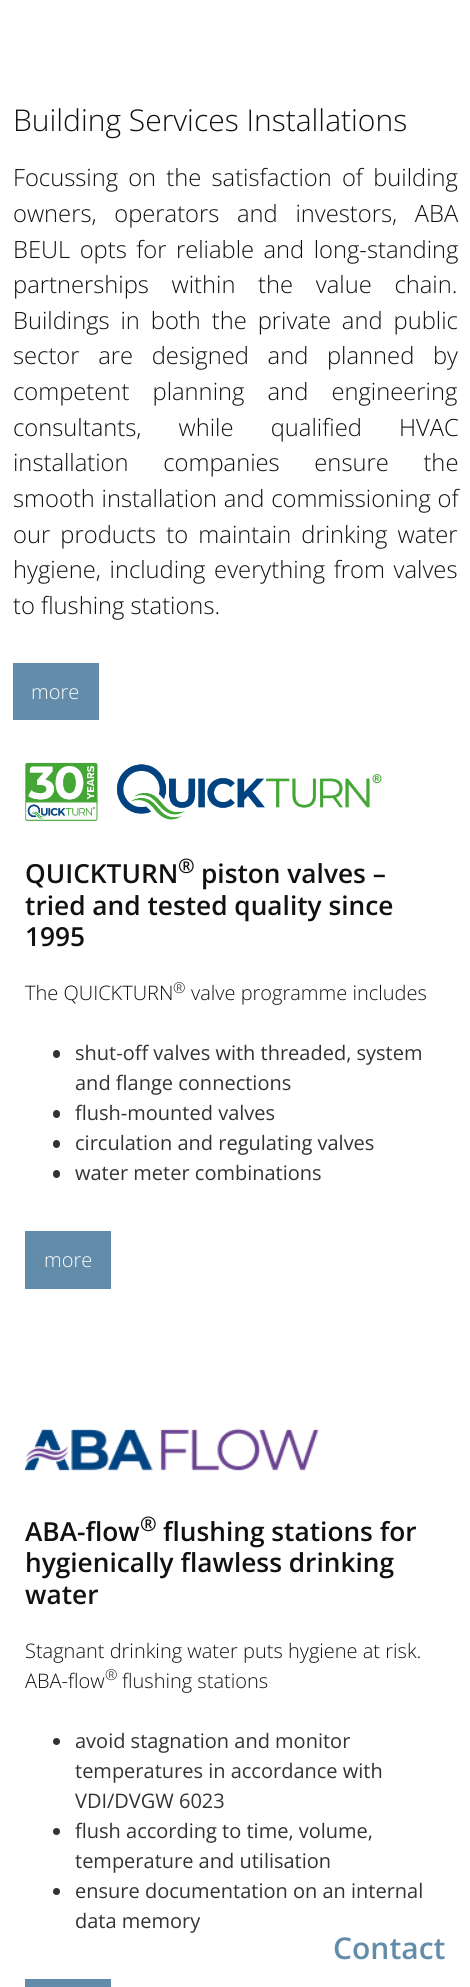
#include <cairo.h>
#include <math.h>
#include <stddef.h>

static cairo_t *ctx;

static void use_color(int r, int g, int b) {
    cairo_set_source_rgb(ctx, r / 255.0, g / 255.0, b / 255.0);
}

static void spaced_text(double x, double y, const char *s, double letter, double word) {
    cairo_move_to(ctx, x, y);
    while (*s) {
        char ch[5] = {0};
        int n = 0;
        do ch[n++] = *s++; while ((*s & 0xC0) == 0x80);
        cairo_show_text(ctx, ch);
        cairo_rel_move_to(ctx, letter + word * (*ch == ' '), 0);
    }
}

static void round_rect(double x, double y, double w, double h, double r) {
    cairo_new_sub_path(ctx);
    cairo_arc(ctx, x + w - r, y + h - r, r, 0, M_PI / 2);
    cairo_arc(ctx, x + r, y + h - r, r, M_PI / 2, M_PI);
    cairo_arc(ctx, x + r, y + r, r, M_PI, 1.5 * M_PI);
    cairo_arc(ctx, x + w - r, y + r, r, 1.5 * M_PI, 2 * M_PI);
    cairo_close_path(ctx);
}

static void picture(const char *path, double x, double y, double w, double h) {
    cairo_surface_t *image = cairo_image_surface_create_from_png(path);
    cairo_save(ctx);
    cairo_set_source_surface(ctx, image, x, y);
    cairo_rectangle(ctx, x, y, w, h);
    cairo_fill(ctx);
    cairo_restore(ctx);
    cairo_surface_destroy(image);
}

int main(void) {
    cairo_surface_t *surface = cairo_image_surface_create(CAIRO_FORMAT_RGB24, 470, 1987);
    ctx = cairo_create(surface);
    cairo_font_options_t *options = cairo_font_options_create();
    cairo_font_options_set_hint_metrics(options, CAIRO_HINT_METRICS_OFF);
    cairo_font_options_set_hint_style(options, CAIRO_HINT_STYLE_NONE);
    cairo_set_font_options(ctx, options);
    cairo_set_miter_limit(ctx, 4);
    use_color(255, 255, 255);
    cairo_paint(ctx);
    cairo_select_font_face(ctx, "Open Sans Light", CAIRO_FONT_SLANT_NORMAL, CAIRO_FONT_WEIGHT_NORMAL);
    cairo_set_font_size(ctx, 30);
    use_color(17, 17, 17);
    cairo_move_to(ctx, 13, 131);
    cairo_show_text(ctx, "Building Services Installations");
    cairo_set_font_size(ctx, 23.75);
    spaced_text(13, 186, "Focussing on the satisfaction of building", 0, 4);
    spaced_text(13, 222, "owners, operators and investors, ABA", 0, 11.5);
    spaced_text(13, 258, "BEUL opts for reliable and long-standing", 0, 3.25);
    spaced_text(13, 293, "partnerships within the value chain.", 0, 16.5);
    spaced_text(13, 329, "Buildings in both the private and public", 0, 4.75);
    spaced_text(13, 364, "sector are designed and planned by", 0, 12.5);
    spaced_text(13, 400, "competent planning and engineering", 0, 17);
    spaced_text(13, 436, "consultants, while qualified HVAC", 0, 31);
    spaced_text(13, 471, "installation companies ensure the", 0, 28.5);
    spaced_text(13, 507, "smooth installation and commissioning of", 0, 0.5);
    spaced_text(13, 543, "our products to maintain drinking water", 0, 4);
    spaced_text(13, 578, "hygiene, including everything from valves", 0, 2.5);
    cairo_move_to(ctx, 13, 614);
    cairo_show_text(ctx, "to flushing stations.");
    use_color(98, 140, 170);
    cairo_rectangle(ctx, 13, 663, 86, 57);
    cairo_fill(ctx);
    cairo_set_font_size(ctx, 20);
    use_color(255, 255, 255);
    cairo_move_to(ctx, 31, 699);
    cairo_show_text(ctx, "more");
    picture("img1.png", 25, 762, 357, 60);
    cairo_select_font_face(ctx, "Open Sans SemiBold", CAIRO_FONT_SLANT_NORMAL, CAIRO_FONT_WEIGHT_NORMAL);
    cairo_set_font_size(ctx, 26.25);
    use_color(17, 17, 17);
    cairo_move_to(ctx, 25, 883);
    cairo_show_text(ctx, "QUICKTURN");
    cairo_set_font_size(ctx, 20);
    cairo_move_to(ctx, 178, 873);
    cairo_show_text(ctx, "®");
    cairo_set_font_size(ctx, 26.25);
    cairo_move_to(ctx, 201, 883);
    cairo_show_text(ctx, "piston valves –");
    cairo_move_to(ctx, 25, 915);
    cairo_show_text(ctx, "tried and tested quality since");
    cairo_move_to(ctx, 25, 946);
    cairo_show_text(ctx, "1995");
    cairo_select_font_face(ctx, "Open Sans Light", CAIRO_FONT_SLANT_NORMAL, CAIRO_FONT_WEIGHT_NORMAL);
    cairo_set_font_size(ctx, 20);
    cairo_move_to(ctx, 25, 1000);
    cairo_show_text(ctx, "The QUICKTURN");
    cairo_set_font_size(ctx, 15);
    cairo_move_to(ctx, 173, 993);
    cairo_show_text(ctx, "®");
    cairo_set_font_size(ctx, 20);
    cairo_move_to(ctx, 191, 1000);
    cairo_show_text(ctx, "valve programme includes");
    use_color(51, 51, 51);
    round_rect(53, 1050, 7, 8, 3.5);
    cairo_fill(ctx);
    cairo_select_font_face(ctx, "Open Sans", CAIRO_FONT_SLANT_NORMAL, CAIRO_FONT_WEIGHT_NORMAL);
    cairo_move_to(ctx, 75, 1060);
    cairo_show_text(ctx, "shut-off valves with threaded, system");
    cairo_move_to(ctx, 75, 1090);
    cairo_show_text(ctx, "and flange connections");
    round_rect(53, 1110, 7, 8, 3.5);
    cairo_fill(ctx);
    cairo_move_to(ctx, 75, 1120);
    cairo_show_text(ctx, "flush-mounted valves");
    round_rect(53, 1140, 7, 8, 3.5);
    cairo_fill(ctx);
    cairo_move_to(ctx, 75, 1150);
    cairo_show_text(ctx, "circulation and regulating valves");
    round_rect(53, 1170, 7, 8, 3.5);
    cairo_fill(ctx);
    cairo_move_to(ctx, 75, 1180);
    cairo_show_text(ctx, "water meter combinations");
    use_color(98, 140, 170);
    cairo_rectangle(ctx, 25, 1231, 86, 58);
    cairo_fill(ctx);
    cairo_select_font_face(ctx, "Open Sans Light", CAIRO_FONT_SLANT_NORMAL, CAIRO_FONT_WEIGHT_NORMAL);
    use_color(255, 255, 255);
    cairo_move_to(ctx, 44, 1267);
    cairo_show_text(ctx, "more");
    picture("img2.png", 25, 1428, 294, 43);
    cairo_select_font_face(ctx, "Open Sans SemiBold", CAIRO_FONT_SLANT_NORMAL, CAIRO_FONT_WEIGHT_NORMAL);
    cairo_set_font_size(ctx, 26.25);
    use_color(17, 17, 17);
    cairo_move_to(ctx, 25, 1541);
    cairo_show_text(ctx, "ABA-flow");
    cairo_set_font_size(ctx, 20);
    cairo_move_to(ctx, 140, 1531);
    cairo_show_text(ctx, "®");
    cairo_set_font_size(ctx, 26.25);
    cairo_move_to(ctx, 163, 1541);
    cairo_show_text(ctx, "flushing stations for");
    cairo_move_to(ctx, 25, 1572);
    cairo_show_text(ctx, "hygienically flawless drinking");
    cairo_move_to(ctx, 25, 1604);
    cairo_show_text(ctx, "water");
    cairo_select_font_face(ctx, "Open Sans Light", CAIRO_FONT_SLANT_NORMAL, CAIRO_FONT_WEIGHT_NORMAL);
    cairo_set_font_size(ctx, 20);
    cairo_move_to(ctx, 25, 1658);
    cairo_show_text(ctx, "Stagnant drinking water puts hygiene at risk.");
    cairo_move_to(ctx, 25, 1688);
    cairo_show_text(ctx, "ABA-flow");
    cairo_set_font_size(ctx, 15);
    cairo_move_to(ctx, 105, 1680);
    cairo_show_text(ctx, "®");
    cairo_set_font_size(ctx, 20);
    cairo_move_to(ctx, 122, 1688);
    cairo_show_text(ctx, "flushing stations");
    use_color(51, 51, 51);
    cairo_new_path(ctx);
    cairo_arc(ctx, 56.5, 1741.5, 3.5, 0, 2 * M_PI);
    cairo_fill(ctx);
    cairo_select_font_face(ctx, "Open Sans", CAIRO_FONT_SLANT_NORMAL, CAIRO_FONT_WEIGHT_NORMAL);
    cairo_move_to(ctx, 75, 1748);
    cairo_show_text(ctx, "avoid stagnation and monitor");
    cairo_move_to(ctx, 75, 1778);
    cairo_show_text(ctx, "temperatures in accordance with");
    cairo_move_to(ctx, 75, 1808);
    cairo_show_text(ctx, "VDI/DVGW 6023");
    cairo_new_path(ctx);
    cairo_arc(ctx, 56.5, 1831.5, 3.5, 0, 2 * M_PI);
    cairo_fill(ctx);
    cairo_move_to(ctx, 75, 1838);
    cairo_show_text(ctx, "flush according to time, volume,");
    cairo_move_to(ctx, 75, 1868);
    cairo_show_text(ctx, "temperature and utilisation");
    cairo_new_path(ctx);
    cairo_arc(ctx, 56.5, 1891.5, 3.5, 0, 2 * M_PI);
    cairo_fill(ctx);
    cairo_move_to(ctx, 75, 1898);
    cairo_show_text(ctx, "ensure documentation on an internal");
    cairo_move_to(ctx, 75, 1928);
    cairo_show_text(ctx, "data memory");
    use_color(98, 140, 170);
    cairo_rectangle(ctx, 25, 1979, 86, 8);
    cairo_fill(ctx);
    cairo_select_font_face(ctx, "Open Sans SemiBold", CAIRO_FONT_SLANT_NORMAL, CAIRO_FONT_WEIGHT_NORMAL);
    cairo_set_font_size(ctx, 30);
    cairo_move_to(ctx, 333, 1959);
    cairo_show_text(ctx, "Contact");
    cairo_surface_write_to_png(surface, "result.png");
    cairo_font_options_destroy(options);
    cairo_destroy(ctx);
    cairo_surface_destroy(surface);
    return 0;
}
